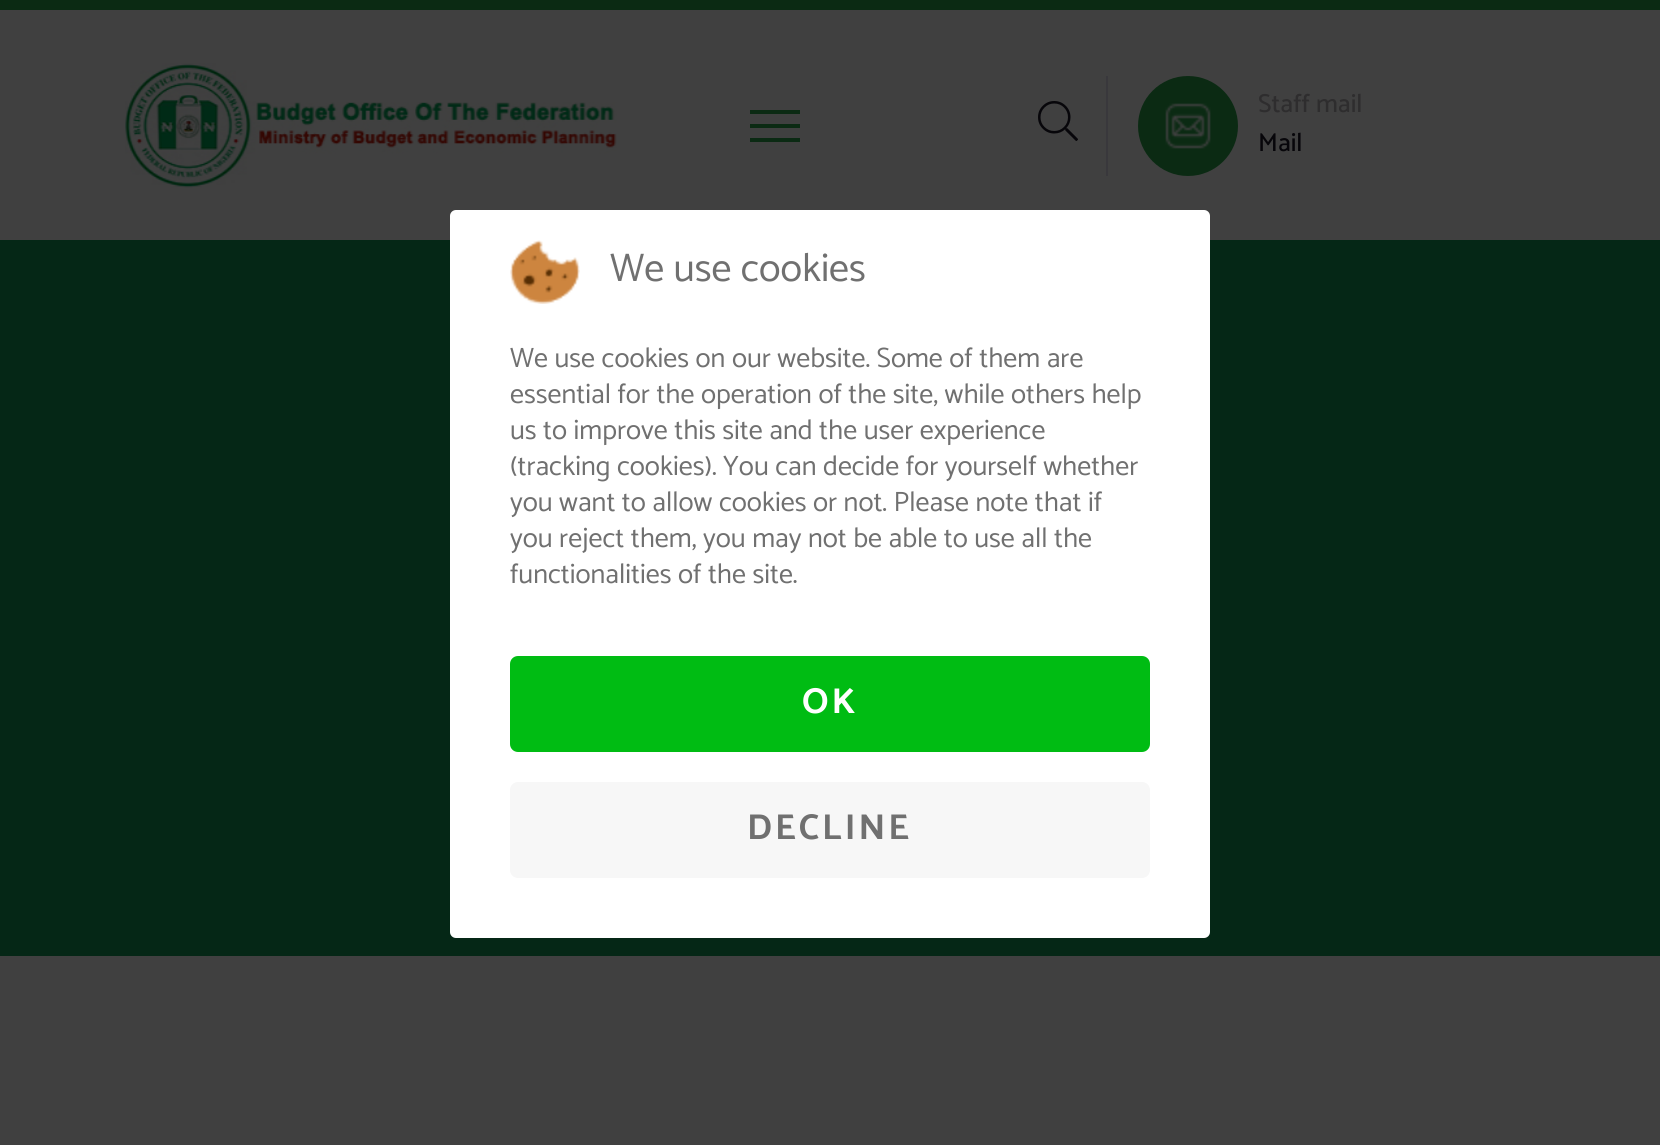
#include <cairo.h>
#include <math.h>
#include <stddef.h>

static cairo_t *ctx;

static void use_color(int r, int g, int b) {
    cairo_set_source_rgb(ctx, r / 255.0, g / 255.0, b / 255.0);
}

static void spaced_text(double x, double y, const char *s, double letter, double word) {
    cairo_move_to(ctx, x, y);
    while (*s) {
        char ch[5] = {0};
        int n = 0;
        do ch[n++] = *s++; while ((*s & 0xC0) == 0x80);
        cairo_show_text(ctx, ch);
        cairo_rel_move_to(ctx, letter + word * (*ch == ' '), 0);
    }
}

static void round_rect(double x, double y, double w, double h, double r) {
    cairo_new_sub_path(ctx);
    cairo_arc(ctx, x + w - r, y + h - r, r, 0, M_PI / 2);
    cairo_arc(ctx, x + r, y + h - r, r, M_PI / 2, M_PI);
    cairo_arc(ctx, x + r, y + r, r, M_PI, 1.5 * M_PI);
    cairo_arc(ctx, x + w - r, y + r, r, 1.5 * M_PI, 2 * M_PI);
    cairo_close_path(ctx);
}

static void picture(const char *path, double x, double y, double w, double h) {
    cairo_surface_t *image = cairo_image_surface_create_from_png(path);
    cairo_save(ctx);
    cairo_set_source_surface(ctx, image, x, y);
    cairo_rectangle(ctx, x, y, w, h);
    cairo_fill(ctx);
    cairo_restore(ctx);
    cairo_surface_destroy(image);
}

int main(void) {
    cairo_surface_t *surface = cairo_image_surface_create(CAIRO_FORMAT_RGB24, 1660, 1145);
    ctx = cairo_create(surface);
    cairo_font_options_t *options = cairo_font_options_create();
    cairo_font_options_set_hint_metrics(options, CAIRO_HINT_METRICS_OFF);
    cairo_font_options_set_hint_style(options, CAIRO_HINT_STYLE_NONE);
    cairo_set_font_options(ctx, options);
    cairo_set_miter_limit(ctx, 4);
    use_color(64, 64, 64);
    cairo_paint(ctx);
    use_color(11, 42, 19);
    cairo_rectangle(ctx, 0, 0, 1660, 10);
    cairo_fill(ctx);
    picture("img1.png", 125, 63, 492, 125);
    cairo_rectangle(ctx, 750, 110, 50, 4);
    cairo_fill(ctx);
    cairo_rectangle(ctx, 750, 124, 50, 4);
    cairo_fill(ctx);
    cairo_rectangle(ctx, 750, 138, 50, 4);
    cairo_fill(ctx);
    picture("img2.png", 1038, 101, 40, 40);
    use_color(57, 56, 60);
    cairo_rectangle(ctx, 1106, 76, 2, 100);
    cairo_fill(ctx);
    use_color(11, 42, 19);
    cairo_arc(ctx, 1188, 126, 50, 0, 2 * M_PI);
    cairo_fill(ctx);
    picture("img3.png", 1165, 103, 46, 46);
    cairo_select_font_face(ctx, "Catamaran Medium", CAIRO_FONT_SLANT_NORMAL, CAIRO_FONT_WEIGHT_NORMAL);
    cairo_set_font_size(ctx, 26);
    use_color(46, 45, 46);
    cairo_move_to(ctx, 1258, 112);
    cairo_show_text(ctx, "Staff mail");
    use_color(7, 6, 10);
    cairo_move_to(ctx, 1258, 151);
    cairo_show_text(ctx, "Mail");
    use_color(5, 39, 22);
    cairo_rectangle(ctx, 0, 240, 1660, 716);
    cairo_fill(ctx);
    use_color(255, 255, 255);
    round_rect(450, 210, 760, 728, 6);
    cairo_fill(ctx);
    picture("img4.png", 510, 240, 70, 64);
    cairo_select_font_face(ctx, "Catamaran", CAIRO_FONT_SLANT_NORMAL, CAIRO_FONT_WEIGHT_NORMAL);
    cairo_set_font_size(ctx, 40);
    use_color(112, 112, 112);
    cairo_move_to(ctx, 610, 281);
    cairo_show_text(ctx, "We use cookies");
    cairo_set_font_size(ctx, 28);
    cairo_move_to(ctx, 510, 367);
    cairo_show_text(ctx, "We use cookies on our website. Some of them are");
    cairo_move_to(ctx, 510, 403);
    cairo_show_text(ctx, "essential for the operation of the site, while others help");
    cairo_move_to(ctx, 510, 439);
    cairo_show_text(ctx, "us to improve this site and the user experience");
    cairo_move_to(ctx, 510, 475);
    cairo_show_text(ctx, "(tracking cookies). You can decide for yourself whether");
    cairo_move_to(ctx, 510, 511);
    cairo_show_text(ctx, "you want to allow cookies or not. Please note that if");
    cairo_move_to(ctx, 510, 547);
    cairo_show_text(ctx, "you reject them, you may not be able to use all the");
    cairo_move_to(ctx, 510, 583);
    cairo_show_text(ctx, "functionalities of the site.");
    use_color(0, 188, 19);
    round_rect(510, 656, 640, 96, 8);
    cairo_fill(ctx);
    cairo_select_font_face(ctx, "Catamaran", CAIRO_FONT_SLANT_NORMAL, CAIRO_FONT_WEIGHT_BOLD);
    cairo_set_font_size(ctx, 36);
    use_color(255, 255, 255);
    spaced_text(802, 713, "OK", 3, 0);
    use_color(247, 247, 247);
    round_rect(510, 782, 640, 96, 8);
    cairo_fill(ctx);
    use_color(112, 112, 112);
    spaced_text(747, 839, "DECLINE", 3, 0);
    cairo_surface_write_to_png(surface, "result.png");
    cairo_font_options_destroy(options);
    cairo_destroy(ctx);
    cairo_surface_destroy(surface);
    return 0;
}
